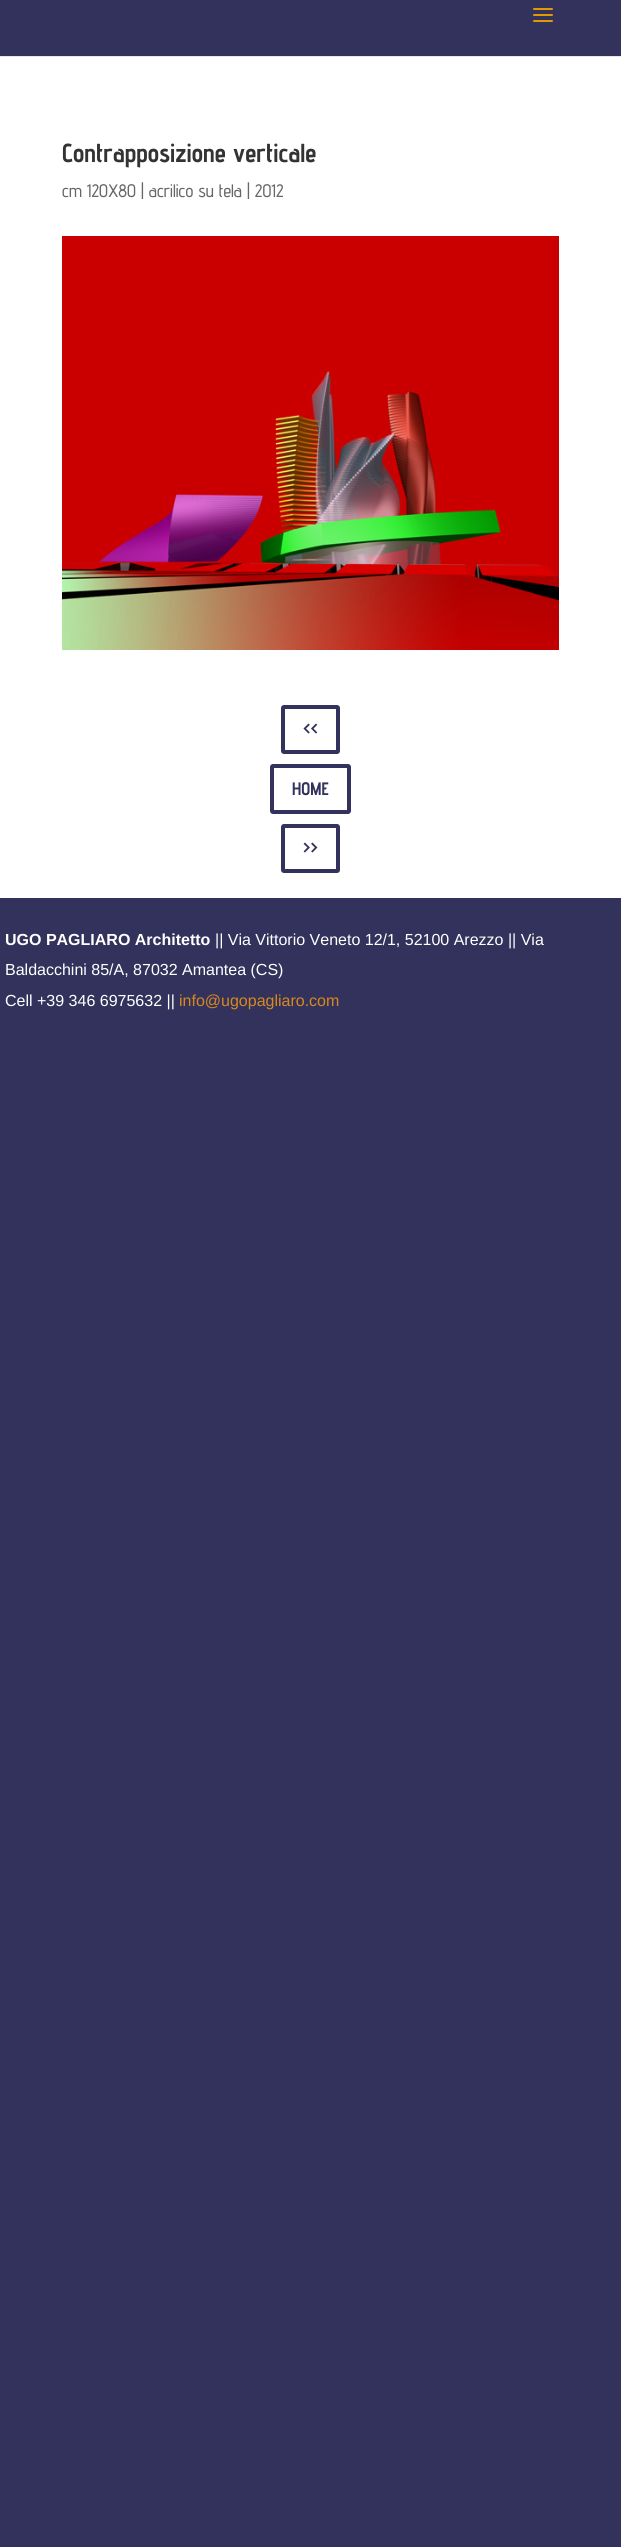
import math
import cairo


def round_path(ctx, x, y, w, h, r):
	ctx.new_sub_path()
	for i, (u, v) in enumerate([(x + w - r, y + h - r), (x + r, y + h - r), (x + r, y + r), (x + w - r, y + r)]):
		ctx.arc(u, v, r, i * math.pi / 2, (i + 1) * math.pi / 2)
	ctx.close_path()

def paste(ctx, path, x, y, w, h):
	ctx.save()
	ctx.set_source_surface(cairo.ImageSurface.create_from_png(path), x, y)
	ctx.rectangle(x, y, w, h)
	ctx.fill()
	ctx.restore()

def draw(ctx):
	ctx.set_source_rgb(0.196, 0.196, 0.361)
	ctx.paint()
	ctx.set_source_rgb(0.902, 0.902, 0.902)
	ctx.rectangle(0, 56, 621, 1)
	ctx.fill()
	paste(ctx, 'media/1.png', 533, 8, 20, 14)
	ctx.set_source_rgb(1, 1, 1)
	ctx.rectangle(0, 57, 621, 841)
	ctx.fill()
	ctx.select_font_face('Advent Pro', cairo.FONT_SLANT_NORMAL, cairo.FONT_WEIGHT_BOLD)
	ctx.set_font_size(26)
	ctx.set_source_rgb(0.2, 0.2, 0.2)
	ctx.move_to(62, 162)
	ctx.show_text('Contrapposizione verticale')
	ctx.select_font_face('Advent Pro Medium')
	ctx.set_font_size(18)
	ctx.set_source_rgb(0.4, 0.4, 0.4)
	ctx.move_to(62, 197)
	ctx.show_text('cm 120X80 | acrilico su tela | 2012')
	paste(ctx, 'media/2.png', 62, 236, 497, 414)
	round_path(ctx, 283, 707, 55, 45, 1)
	ctx.set_source_rgb(0.196, 0.196, 0.361)
	ctx.set_line_width(4)
	ctx.stroke()
	ctx.select_font_face('Advent Pro', cairo.FONT_SLANT_NORMAL, cairo.FONT_WEIGHT_BOLD)
	ctx.move_to(303, 735)
	ctx.show_text('<<')
	round_path(ctx, 272, 766, 77, 46, 1)
	ctx.stroke()
	ctx.move_to(292, 795)
	ctx.show_text('HOME')
	round_path(ctx, 283, 826, 55, 45, 1)
	ctx.stroke()
	ctx.move_to(303, 854)
	ctx.show_text('>>')
	ctx.select_font_face('Arimo', cairo.FONT_SLANT_NORMAL, cairo.FONT_WEIGHT_BOLD)
	ctx.set_font_size(16)
	ctx.set_source_rgb(1, 1, 1)
	ctx.move_to(5, 945)
	ctx.show_text('UGO PAGLIARO Architetto')
	ctx.select_font_face('Arimo')
	for x, y, s in [
		(215, 945, '|| Via Vittorio Veneto 12/1, 52100 Arezzo || Via'),
		(5, 975, 'Baldacchini 85/A, 87032 Amantea (CS)'),
		(5, 1006, 'Cell +39 346 6975632 ||'),
	]:
		ctx.move_to(x, y)
		ctx.show_text(s)
	ctx.set_source_rgb(0.851, 0.533, 0.118)
	ctx.move_to(179, 1006)
	ctx.show_text('info@ugopagliaro.com')


surface = cairo.ImageSurface(cairo.FORMAT_RGB24, 621, 2547)
ctx = cairo.Context(surface)
options = cairo.FontOptions()
options.set_hint_metrics(cairo.HINT_METRICS_OFF)
options.set_hint_style(cairo.HINT_STYLE_NONE)
ctx.set_font_options(options)
ctx.set_miter_limit(4)
draw(ctx)
surface.write_to_png('image.png')
